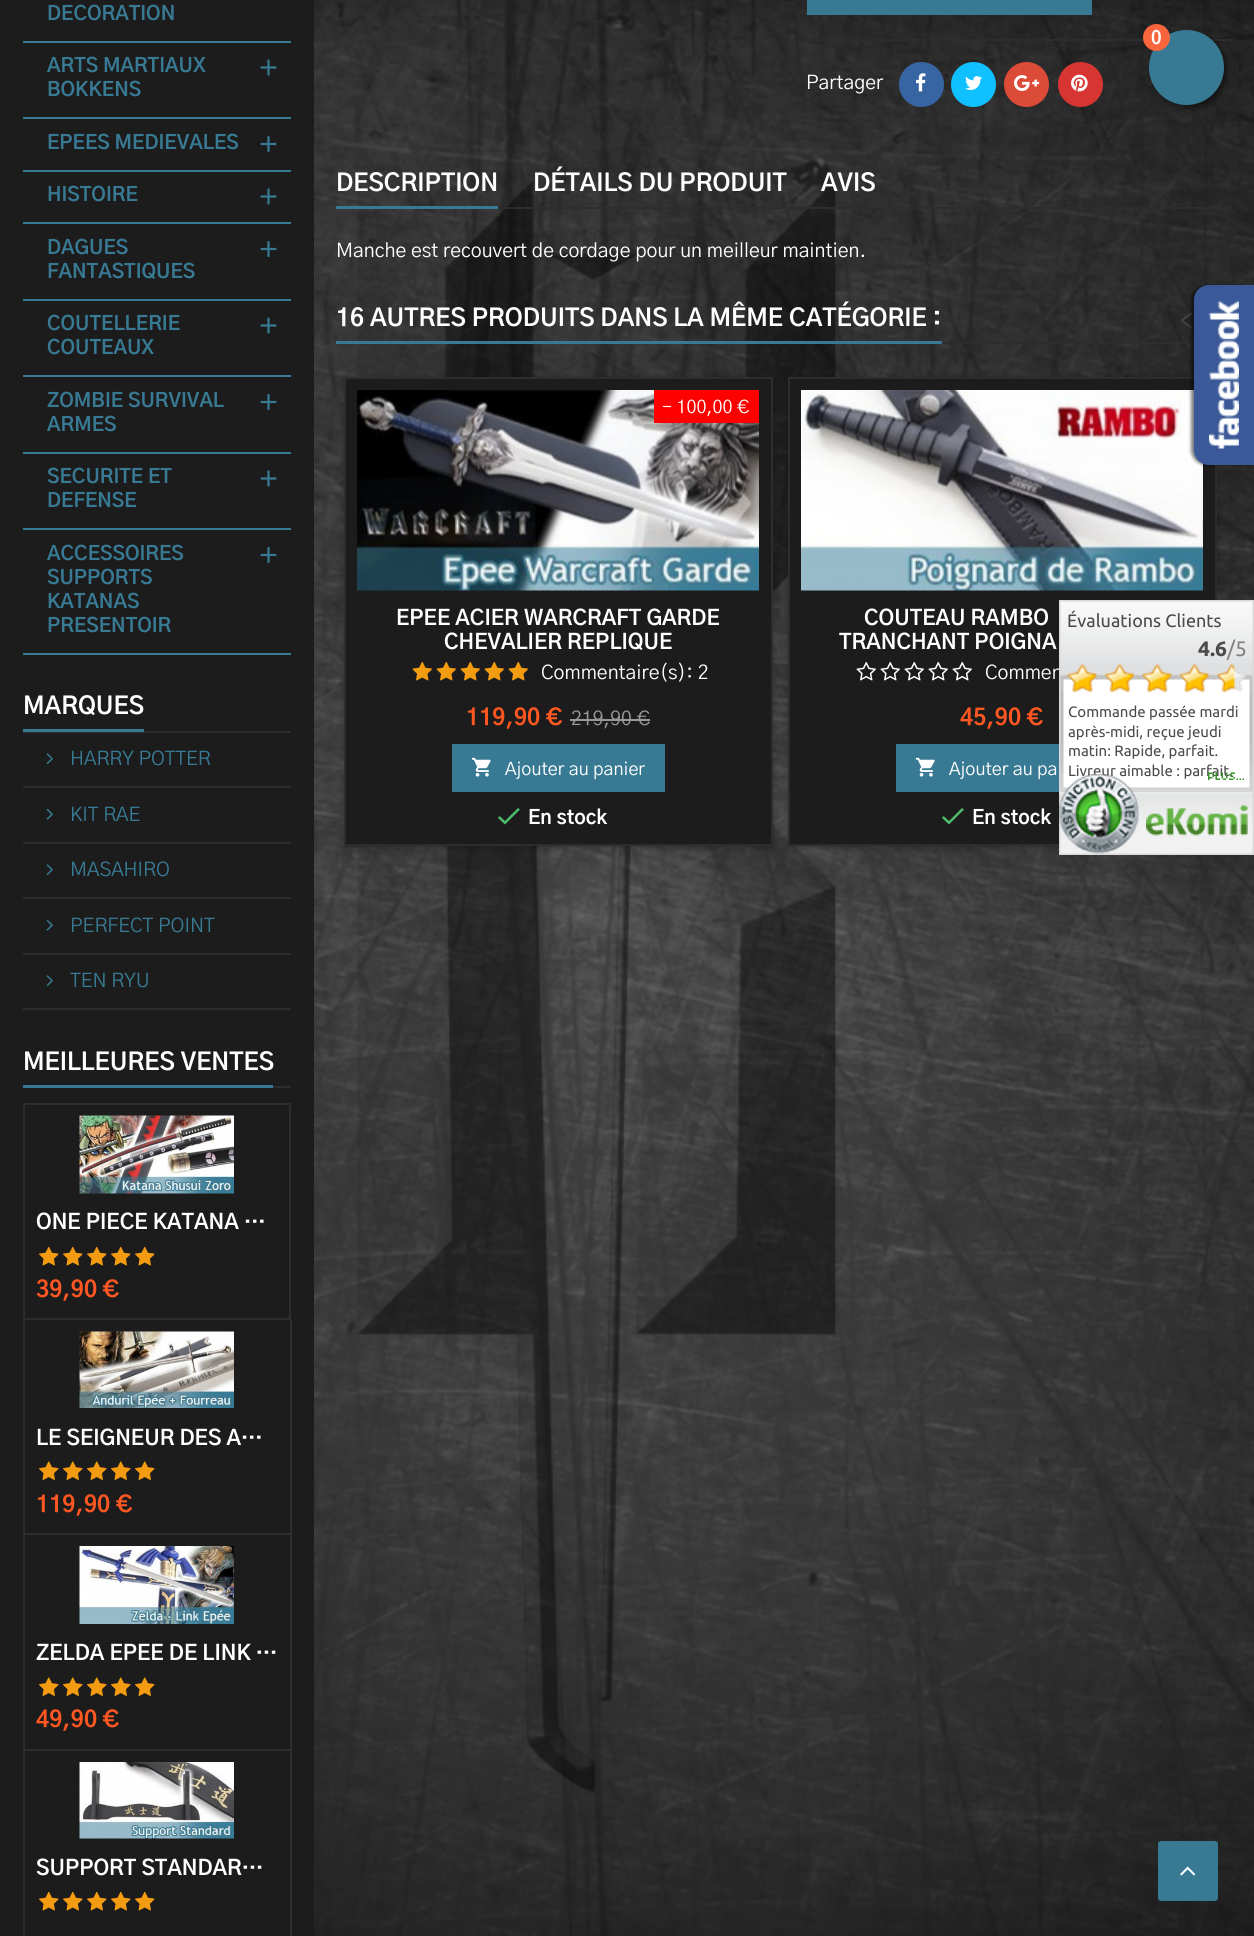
import math
import cairo


def round_path(ctx, x, y, w, h, r):
	ctx.new_sub_path()
	for i, (u, v) in enumerate([(x + w - r, y + h - r), (x + r, y + h - r), (x + r, y + r), (x + w - r, y + r)]):
		ctx.arc(u, v, r, i * math.pi / 2, (i + 1) * math.pi / 2)
	ctx.close_path()

def blur_box(ctx, x, y, w, h, r, blur, alpha):
	ctx.push_group_with_content(cairo.CONTENT_ALPHA)
	ctx.set_operator(cairo.OPERATOR_SOURCE)
	for i in range(15, -16, -2):
		e = blur * i / 6
		if min(w, h) + 2 * e > 0:
			ctx.set_source_rgba(0, 0, 0, alpha * math.erfc((i - 1) / 8.5) / 2)
			round_path(ctx, x - e, y - e, w + 2 * e, h + 2 * e, max(0, min(r + e + blur * .6, min(w, h) / 2 + e)))
			ctx.fill()
	ctx.mask(ctx.pop_group())

def paste(ctx, path, x, y, w, h):
	ctx.save()
	ctx.set_source_surface(cairo.ImageSurface.create_from_png(path), x, y)
	ctx.rectangle(x, y, w, h)
	ctx.fill()
	ctx.restore()

def draw(ctx):
	ctx.set_source_rgb(1, 1, 1)
	ctx.paint()
	paste(ctx, 'media/1.png', 314, 0, 940, 1936)
	ctx.set_source_rgb(0.11, 0.11, 0.11)
	ctx.rectangle(0, 0, 314, 1936)
	ctx.fill()
	ctx.set_source_rgb(0.22, 0.478, 0.58)
	ctx.rectangle(23, 41, 268, 2)
	ctx.fill()
	ctx.select_font_face('Gothic A1', cairo.FONT_SLANT_NORMAL, cairo.FONT_WEIGHT_BOLD)
	ctx.set_font_size(19.5)
	ctx.move_to(47, 20)
	ctx.show_text('DECORATION')
	ctx.rectangle(23, 117, 268, 2)
	ctx.fill()
	ctx.move_to(47, 72)
	ctx.show_text('ARTS MARTIAUX')
	ctx.move_to(47, 96)
	ctx.show_text('BOKKENS')
	paste(ctx, 'media/2.png', 260, 59, 17, 17)
	ctx.rectangle(23, 170, 268, 2)
	ctx.fill()
	ctx.move_to(47, 149)
	ctx.show_text('EPEES MEDIEVALES')
	paste(ctx, 'media/3.png', 260, 136, 17, 16)
	ctx.rectangle(23, 222, 268, 2)
	ctx.fill()
	ctx.move_to(47, 201)
	ctx.show_text('HISTOIRE')
	paste(ctx, 'media/2.png', 260, 188, 17, 17)
	ctx.rectangle(23, 299, 268, 2)
	ctx.fill()
	ctx.move_to(47, 254)
	ctx.show_text('DAGUES')
	ctx.move_to(47, 278)
	ctx.show_text('FANTASTIQUES')
	paste(ctx, 'media/3.png', 260, 241, 17, 16)
	ctx.rectangle(23, 375, 268, 2)
	ctx.fill()
	ctx.move_to(47, 330)
	ctx.show_text('COUTELLERIE')
	ctx.move_to(47, 354)
	ctx.show_text('COUTEAUX')
	paste(ctx, 'media/2.png', 260, 317, 17, 17)
	ctx.rectangle(23, 452, 268, 2)
	ctx.fill()
	ctx.move_to(47, 407)
	ctx.show_text('ZOMBIE SURVIVAL')
	ctx.move_to(47, 431)
	ctx.show_text('ARMES')
	paste(ctx, 'media/3.png', 260, 394, 17, 16)
	ctx.rectangle(23, 528, 268, 2)
	ctx.fill()
	ctx.move_to(47, 483)
	ctx.show_text('SECURITE ET')
	ctx.move_to(47, 507)
	ctx.show_text('DEFENSE')
	paste(ctx, 'media/2.png', 260, 470, 17, 17)
	ctx.rectangle(23, 653, 268, 2)
	ctx.fill()
	for x, y, s in [
		(47, 560, 'ACCESSOIRES'),
		(47, 584, 'SUPPORTS'),
		(47, 608, 'KATANAS'),
		(47, 632, 'PRESENTOIR'),
	]:
		ctx.move_to(x, y)
		ctx.show_text(s)
	paste(ctx, 'media/3.png', 260, 547, 17, 16)
	ctx.set_source_rgb(0.176, 0.176, 0.176)
	ctx.rectangle(23, 731, 268, 2)
	ctx.fill()
	ctx.set_source_rgb(0.22, 0.478, 0.58)
	ctx.rectangle(23, 729, 121, 3)
	ctx.fill()
	ctx.set_font_size(24)
	ctx.set_source_rgb(1, 1, 1)
	ctx.move_to(23, 714)
	ctx.show_text('MARQUES')
	ctx.set_source_rgb(0.176, 0.176, 0.176)
	ctx.rectangle(23, 786, 268, 2)
	ctx.fill()
	paste(ctx, 'media/4.png', 46, 753, 7, 12)
	ctx.select_font_face('Gothic A1')
	ctx.set_font_size(19.5)
	ctx.set_source_rgb(0.22, 0.478, 0.58)
	ctx.move_to(70, 765)
	ctx.show_text('HARRY POTTER')
	ctx.set_source_rgb(0.176, 0.176, 0.176)
	ctx.rectangle(23, 842, 268, 2)
	ctx.fill()
	paste(ctx, 'media/5.png', 46, 808, 7, 12)
	ctx.set_source_rgb(0.22, 0.478, 0.58)
	ctx.move_to(70, 821)
	ctx.show_text('KIT RAE')
	ctx.set_source_rgb(0.176, 0.176, 0.176)
	ctx.rectangle(23, 897, 268, 2)
	ctx.fill()
	paste(ctx, 'media/4.png', 46, 864, 7, 12)
	ctx.set_source_rgb(0.22, 0.478, 0.58)
	ctx.move_to(70, 876)
	ctx.show_text('MASAHIRO')
	ctx.set_source_rgb(0.176, 0.176, 0.176)
	ctx.rectangle(23, 953, 268, 2)
	ctx.fill()
	paste(ctx, 'media/5.png', 46, 919, 7, 12)
	ctx.set_source_rgb(0.22, 0.478, 0.58)
	ctx.move_to(70, 932)
	ctx.show_text('PERFECT POINT')
	ctx.set_source_rgb(0.176, 0.176, 0.176)
	ctx.rectangle(23, 1008, 268, 2)
	ctx.fill()
	paste(ctx, 'media/4.png', 46, 975, 7, 12)
	ctx.set_source_rgb(0.22, 0.478, 0.58)
	ctx.move_to(70, 987)
	ctx.show_text('TEN RYU')
	ctx.set_source_rgb(0.176, 0.176, 0.176)
	ctx.rectangle(273, 1086, 18, 2)
	ctx.fill()
	ctx.set_source_rgb(0.22, 0.478, 0.58)
	ctx.rectangle(23, 1085, 250, 3)
	ctx.fill()
	ctx.select_font_face('Gothic A1', cairo.FONT_SLANT_NORMAL, cairo.FONT_WEIGHT_BOLD)
	ctx.set_font_size(24)
	ctx.set_source_rgb(1, 1, 1)
	ctx.move_to(23, 1070)
	ctx.show_text('MEILLEURES VENTES')
	ctx.rectangle(24, 1104, 266, 215)
	ctx.set_source_rgb(0.176, 0.176, 0.176)
	ctx.stroke()
	paste(ctx, 'media/6.png', 79, 1115, 155, 79)
	ctx.set_font_size(21)
	ctx.set_source_rgb(1, 1, 1)
	ctx.move_to(36, 1229)
	ctx.show_text('ONE PIECE KATANA …')
	paste(ctx, 'media/7.png', 39, 1246, 20, 20)
	paste(ctx, 'media/7.png', 63, 1246, 20, 20)
	paste(ctx, 'media/7.png', 87, 1246, 20, 20)
	paste(ctx, 'media/7.png', 111, 1246, 20, 20)
	paste(ctx, 'media/7.png', 135, 1246, 20, 20)
	ctx.set_font_size(22.5)
	ctx.set_source_rgb(1, 0.341, 0.133)
	ctx.move_to(36, 1297)
	ctx.show_text('39,90 €')
	ctx.set_source_rgb(0.176, 0.176, 0.176)
	ctx.rectangle(290, 1320, 2, 616)
	ctx.rectangle(23, 1533, 268, 2)
	ctx.rectangle(23, 1320, 2, 215)
	ctx.fill()
	paste(ctx, 'media/8.png', 79, 1331, 155, 77)
	ctx.set_font_size(21)
	ctx.set_source_rgb(1, 1, 1)
	ctx.move_to(36, 1445)
	ctx.show_text('LE SEIGNEUR DES A…')
	paste(ctx, 'media/9.png', 39, 1461, 20, 19)
	paste(ctx, 'media/9.png', 63, 1461, 20, 19)
	paste(ctx, 'media/9.png', 87, 1461, 20, 19)
	paste(ctx, 'media/9.png', 111, 1461, 20, 19)
	paste(ctx, 'media/9.png', 135, 1461, 20, 19)
	ctx.set_font_size(22.5)
	ctx.set_source_rgb(1, 0.341, 0.133)
	ctx.move_to(36, 1512)
	ctx.show_text('119,90 €')
	ctx.set_source_rgb(0.176, 0.176, 0.176)
	ctx.rectangle(23, 1749, 268, 2)
	ctx.fill()
	ctx.rectangle(23, 1535, 2, 401)
	ctx.fill()
	paste(ctx, 'media/10.png', 79, 1546, 155, 78)
	ctx.save()
	ctx.rectangle(36, 1643, 242, 24)
	ctx.clip()
	ctx.set_font_size(21)
	ctx.set_source_rgb(1, 1, 1)
	ctx.move_to(36, 1660)
	ctx.show_text('ZELDA EPÉE DE LINK …')
	ctx.restore()
	paste(ctx, 'media/9.png', 39, 1677, 20, 19)
	paste(ctx, 'media/9.png', 63, 1677, 20, 19)
	paste(ctx, 'media/9.png', 87, 1677, 20, 19)
	paste(ctx, 'media/9.png', 111, 1677, 20, 19)
	paste(ctx, 'media/9.png', 135, 1677, 20, 19)
	ctx.set_source_rgb(1, 0.341, 0.133)
	ctx.move_to(36, 1727)
	ctx.show_text('49,90 €')
	paste(ctx, 'media/11.png', 79, 1762, 155, 77)
	ctx.set_font_size(21)
	ctx.set_source_rgb(1, 1, 1)
	ctx.move_to(36, 1875)
	ctx.show_text('SUPPORT STANDAR…')
	paste(ctx, 'media/7.png', 39, 1891, 20, 20)
	paste(ctx, 'media/7.png', 63, 1891, 20, 20)
	paste(ctx, 'media/7.png', 87, 1891, 20, 20)
	paste(ctx, 'media/7.png', 111, 1891, 20, 20)
	paste(ctx, 'media/7.png', 135, 1891, 20, 20)
	ctx.set_source_rgb(0.22, 0.478, 0.58)
	ctx.rectangle(807, 0, 285, 15)
	ctx.fill()
	ctx.set_source_rgb(0.176, 0.176, 0.176)
	ctx.rectangle(807, 39, 425, 2)
	ctx.fill()
	ctx.select_font_face('Gothic A1')
	ctx.set_font_size(19.5)
	ctx.set_source_rgb(1, 1, 1)
	ctx.move_to(806, 89)
	ctx.show_text('Partager')
	ctx.set_source_rgb(0.216, 0.396, 0.639)
	ctx.new_path()
	ctx.arc(921.5, 84.5, 22.5, 0, 2 * math.pi)
	ctx.fill()
	paste(ctx, 'media/12.png', 916, 73, 10, 19)
	ctx.set_source_rgb(0.067, 0.757, 1)
	ctx.arc(973.5, 84.5, 22.5, 0, 2 * math.pi)
	ctx.fill()
	paste(ctx, 'media/13.png', 965, 76, 17, 14)
	ctx.set_source_rgb(0.863, 0.29, 0.22)
	ctx.arc(1026.5, 84.5, 22.5, 0, 2 * math.pi)
	ctx.fill()
	paste(ctx, 'media/14.png', 1014, 75, 26, 16)
	ctx.set_source_rgb(0.843, 0.208, 0.196)
	ctx.arc(1080.5, 84.5, 22.5, 0, 2 * math.pi)
	ctx.fill()
	paste(ctx, 'media/15.png', 1071, 74, 17, 18)
	ctx.set_source_rgb(0.176, 0.176, 0.176)
	ctx.rectangle(498, 207, 734, 2)
	ctx.fill()
	ctx.set_source_rgb(0.22, 0.478, 0.58)
	ctx.rectangle(336, 206, 162, 3)
	ctx.fill()
	ctx.select_font_face('Gothic A1', cairo.FONT_SLANT_NORMAL, cairo.FONT_WEIGHT_BOLD)
	ctx.set_font_size(24)
	ctx.set_source_rgb(1, 1, 1)
	for x, y, s in [
		(336, 191, 'DESCRIPTION'),
		(533, 191, 'DÉTAILS DU PRODUIT'),
		(821, 191, 'AVIS'),
	]:
		ctx.move_to(x, y)
		ctx.show_text(s)
	ctx.select_font_face('Gothic A1')
	ctx.set_font_size(19.5)
	ctx.move_to(336, 257)
	ctx.show_text('Manche est recouvert de cordage pour un meilleur maintien.')
	ctx.set_source_rgb(0.176, 0.176, 0.176)
	ctx.rectangle(942, 342, 252, 2)
	ctx.fill()
	ctx.set_source_rgb(0.22, 0.478, 0.58)
	ctx.rectangle(336, 341, 606, 3)
	ctx.fill()
	ctx.select_font_face('Gothic A1', cairo.FONT_SLANT_NORMAL, cairo.FONT_WEIGHT_BOLD)
	ctx.set_font_size(24)
	ctx.set_source_rgb(1, 1, 1)
	ctx.move_to(336, 326)
	ctx.show_text('16 AUTRES PRODUITS DANS LA MÊME CATÉGORIE :')
	ctx.select_font_face('Gothic A1')
	ctx.set_source_rgb(0.267, 0.267, 0.267)
	ctx.move_to(1180, 329)
	ctx.show_text('<')
	ctx.set_source_rgb(0, 0, 0)
	blur_box(ctx, 344, 378, 429, 470, 0, 3, 0.24)
	ctx.set_source_rgb(0.11, 0.11, 0.11)
	ctx.rectangle(345, 378, 427, 467)
	ctx.fill_preserve()
	ctx.set_source_rgb(0.176, 0.176, 0.176)
	ctx.stroke()
	paste(ctx, 'media/16.png', 357, 390, 402, 201)
	ctx.set_source_rgb(1, 0, 0)
	ctx.rectangle(654, 390, 105, 33)
	ctx.fill()
	ctx.set_font_size(18)
	ctx.set_source_rgb(1, 1, 1)
	ctx.move_to(662, 413)
	ctx.show_text('- 100,00 €')
	ctx.select_font_face('Gothic A1', cairo.FONT_SLANT_NORMAL, cairo.FONT_WEIGHT_BOLD)
	ctx.set_font_size(21)
	ctx.move_to(396, 625)
	ctx.show_text('EPEE ACIER WARCRAFT GARDE')
	ctx.move_to(444, 649)
	ctx.show_text('CHEVALIER REPLIQUE')
	paste(ctx, 'media/17.png', 412, 661, 20, 20)
	paste(ctx, 'media/17.png', 436, 661, 20, 20)
	paste(ctx, 'media/17.png', 460, 661, 20, 20)
	paste(ctx, 'media/17.png', 484, 661, 20, 20)
	paste(ctx, 'media/17.png', 508, 661, 20, 20)
	ctx.select_font_face('Gothic A1')
	ctx.set_font_size(19.5)
	ctx.move_to(541, 679)
	ctx.show_text('Commentaire(s): 2')
	ctx.select_font_face('Gothic A1', cairo.FONT_SLANT_NORMAL, cairo.FONT_WEIGHT_BOLD)
	ctx.set_font_size(22.5)
	ctx.set_source_rgb(1, 0.341, 0.133)
	ctx.move_to(466, 725)
	ctx.show_text('119,90 €')
	ctx.select_font_face('Gothic A1')
	ctx.set_font_size(19.5)
	ctx.set_source_rgb(0.6, 0.6, 0.6)
	ctx.move_to(571, 725)
	ctx.show_text('219,90 €')
	ctx.rectangle(570, 719, 80, 2)
	ctx.fill()
	ctx.set_source_rgb(0.22, 0.478, 0.58)
	ctx.rectangle(452, 744, 213, 48)
	ctx.fill()
	paste(ctx, 'media/18.png', 471, 757, 20, 20)
	ctx.set_font_size(18)
	ctx.set_source_rgb(1, 1, 1)
	ctx.move_to(505, 775)
	ctx.show_text('Ajouter au panier')
	ctx.set_source_rgb(0.298, 0.733, 0.424)
	ctx.new_path()
	ctx.move_to(505, 821)
	ctx.line_to(518, 808)
	ctx.line_to(520, 809.5)
	ctx.line_to(505, 824.5)
	ctx.line_to(498, 818)
	ctx.line_to(499.5, 816)
	ctx.close_path()
	ctx.fill()
	ctx.select_font_face('Gothic A1', cairo.FONT_SLANT_NORMAL, cairo.FONT_WEIGHT_BOLD)
	ctx.set_font_size(19.5)
	ctx.set_source_rgb(1, 1, 1)
	ctx.move_to(528, 824)
	ctx.show_text('En stock')
	ctx.set_source_rgb(0, 0, 0)
	blur_box(ctx, 788, 378, 429, 470, 0, 3, 0.24)
	ctx.set_source_rgb(0.11, 0.11, 0.11)
	ctx.rectangle(789, 378, 427, 467)
	ctx.fill_preserve()
	ctx.set_source_rgb(0.176, 0.176, 0.176)
	ctx.stroke()
	paste(ctx, 'media/19.png', 801, 390, 402, 201)
	ctx.set_font_size(21)
	ctx.set_source_rgb(1, 1, 1)
	ctx.move_to(864, 625)
	ctx.show_text('COUTEAU RAMBO')
	ctx.move_to(839, 649)
	ctx.show_text('TRANCHANT POIGNA')
	paste(ctx, 'media/20.png', 856, 661, 20, 20)
	paste(ctx, 'media/20.png', 880, 661, 20, 20)
	paste(ctx, 'media/20.png', 904, 661, 20, 20)
	paste(ctx, 'media/20.png', 928, 661, 20, 20)
	paste(ctx, 'media/20.png', 952, 661, 20, 20)
	ctx.select_font_face('Gothic A1')
	ctx.set_font_size(19.5)
	ctx.move_to(985, 679)
	ctx.show_text('Commen')
	ctx.select_font_face('Gothic A1', cairo.FONT_SLANT_NORMAL, cairo.FONT_WEIGHT_BOLD)
	ctx.set_font_size(22.5)
	ctx.set_source_rgb(1, 0.341, 0.133)
	ctx.move_to(960, 725)
	ctx.show_text('45,90 €')
	ctx.set_source_rgb(0.22, 0.478, 0.58)
	ctx.rectangle(896, 744, 163, 48)
	ctx.fill()
	paste(ctx, 'media/18.png', 915, 757, 20, 20)
	ctx.select_font_face('Gothic A1')
	ctx.set_font_size(18)
	ctx.set_source_rgb(1, 1, 1)
	ctx.move_to(949, 775)
	ctx.show_text('Ajouter au pa')
	ctx.set_source_rgb(0.298, 0.733, 0.424)
	ctx.new_path()
	ctx.move_to(949, 821)
	ctx.line_to(962, 808)
	ctx.line_to(964, 809.5)
	ctx.line_to(949, 824.5)
	ctx.line_to(942, 818)
	ctx.line_to(943.5, 816)
	ctx.close_path()
	ctx.fill()
	ctx.select_font_face('Gothic A1', cairo.FONT_SLANT_NORMAL, cairo.FONT_WEIGHT_BOLD)
	ctx.set_font_size(19.5)
	ctx.set_source_rgb(1, 1, 1)
	ctx.move_to(972, 824)
	ctx.show_text('En stock')
	ctx.set_source_rgb(0, 0, 0)
	blur_box(ctx, 1191, 285, 60, 180, 15, 1.5, 0.5)
	ctx.set_source_rgb(0.231, 0.349, 0.596)
	ctx.new_path()
	ctx.move_to(1209, 285)
	ctx.line_to(1254, 285)
	ctx.line_to(1254, 465)
	ctx.line_to(1209, 465)
	ctx.curve_to(1200.5, 465, 1194, 458.5, 1194, 450)
	ctx.line_to(1194, 300)
	ctx.curve_to(1194, 291.5, 1200.5, 285, 1209, 285)
	ctx.close_path()
	ctx.fill()
	paste(ctx, 'media/21.png', 1209, 301, 30, 148)
	ctx.set_source_rgb(0, 0, 0)
	blur_box(ctx, 1152, 33, 75, 75, 37.5, 3, 0.5)
	ctx.set_source_rgb(0.22, 0.478, 0.58)
	ctx.arc(1186.5, 67.5, 37.5, 0, 2 * math.pi)
	ctx.fill()
	ctx.set_source_rgb(0.973, 0.396, 0.239)
	ctx.arc(1156.5, 37.5, 13.5, 0, 2 * math.pi)
	ctx.fill()
	ctx.set_font_size(18)
	ctx.set_source_rgb(1, 1, 1)
	ctx.move_to(1151, 44)
	ctx.show_text('0')
	ctx.set_source_rgb(0.22, 0.478, 0.58)
	round_path(ctx, 1158, 1841, 60, 60, 3)
	ctx.fill()
	paste(ctx, 'media/22.png', 1180, 1866, 16, 10)
	paste(ctx, 'media/23.png', 1059, 600, 195, 255)
	ctx.select_font_face('Ubuntu')
	ctx.set_source_rgb(0.298, 0.294, 0.294)
	ctx.move_to(1067, 627)
	ctx.show_text('Évaluations Clients')
	ctx.select_font_face('Ubuntu', cairo.FONT_SLANT_NORMAL, cairo.FONT_WEIGHT_BOLD)
	ctx.set_font_size(21)
	ctx.move_to(1198, 656)
	ctx.show_text('4.6')
	ctx.select_font_face('Ubuntu')
	ctx.set_source_rgb(0.514, 0.502, 0.502)
	ctx.move_to(1227, 656)
	ctx.show_text('/5')
	paste(ctx, 'media/24.png', 1068, 665, 179, 27)
	paste(ctx, 'media/25.png', 1067, 664, 168, 29)
	ctx.set_font_size(15)
	ctx.set_source_rgb(0.298, 0.294, 0.294)
	for x, y, s in [
		(1068, 717, 'Commande passée mardi'),
		(1068, 737, 'après-midi, reçue jeudi'),
		(1068, 756, 'matin: Rapide, parfait.'),
		(1068, 776, 'Livreur aimable : parfait.'),
	]:
		ctx.move_to(x, y)
		ctx.show_text(s)
	ctx.select_font_face('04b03')
	ctx.set_font_size(12)
	ctx.set_source_rgb(0.212, 0.576, 0.157)
	ctx.move_to(1208, 780)
	ctx.show_text('PLUS...')
	paste(ctx, 'media/26.png', 1059, 774, 80, 80)
	paste(ctx, 'media/27.png', 1146, 805, 102, 31)


surface = cairo.ImageSurface(cairo.FORMAT_RGB24, 1254, 1936)
ctx = cairo.Context(surface)
options = cairo.FontOptions()
options.set_hint_metrics(cairo.HINT_METRICS_OFF)
options.set_hint_style(cairo.HINT_STYLE_NONE)
ctx.set_font_options(options)
ctx.set_miter_limit(4)
draw(ctx)
surface.write_to_png('image.png')
